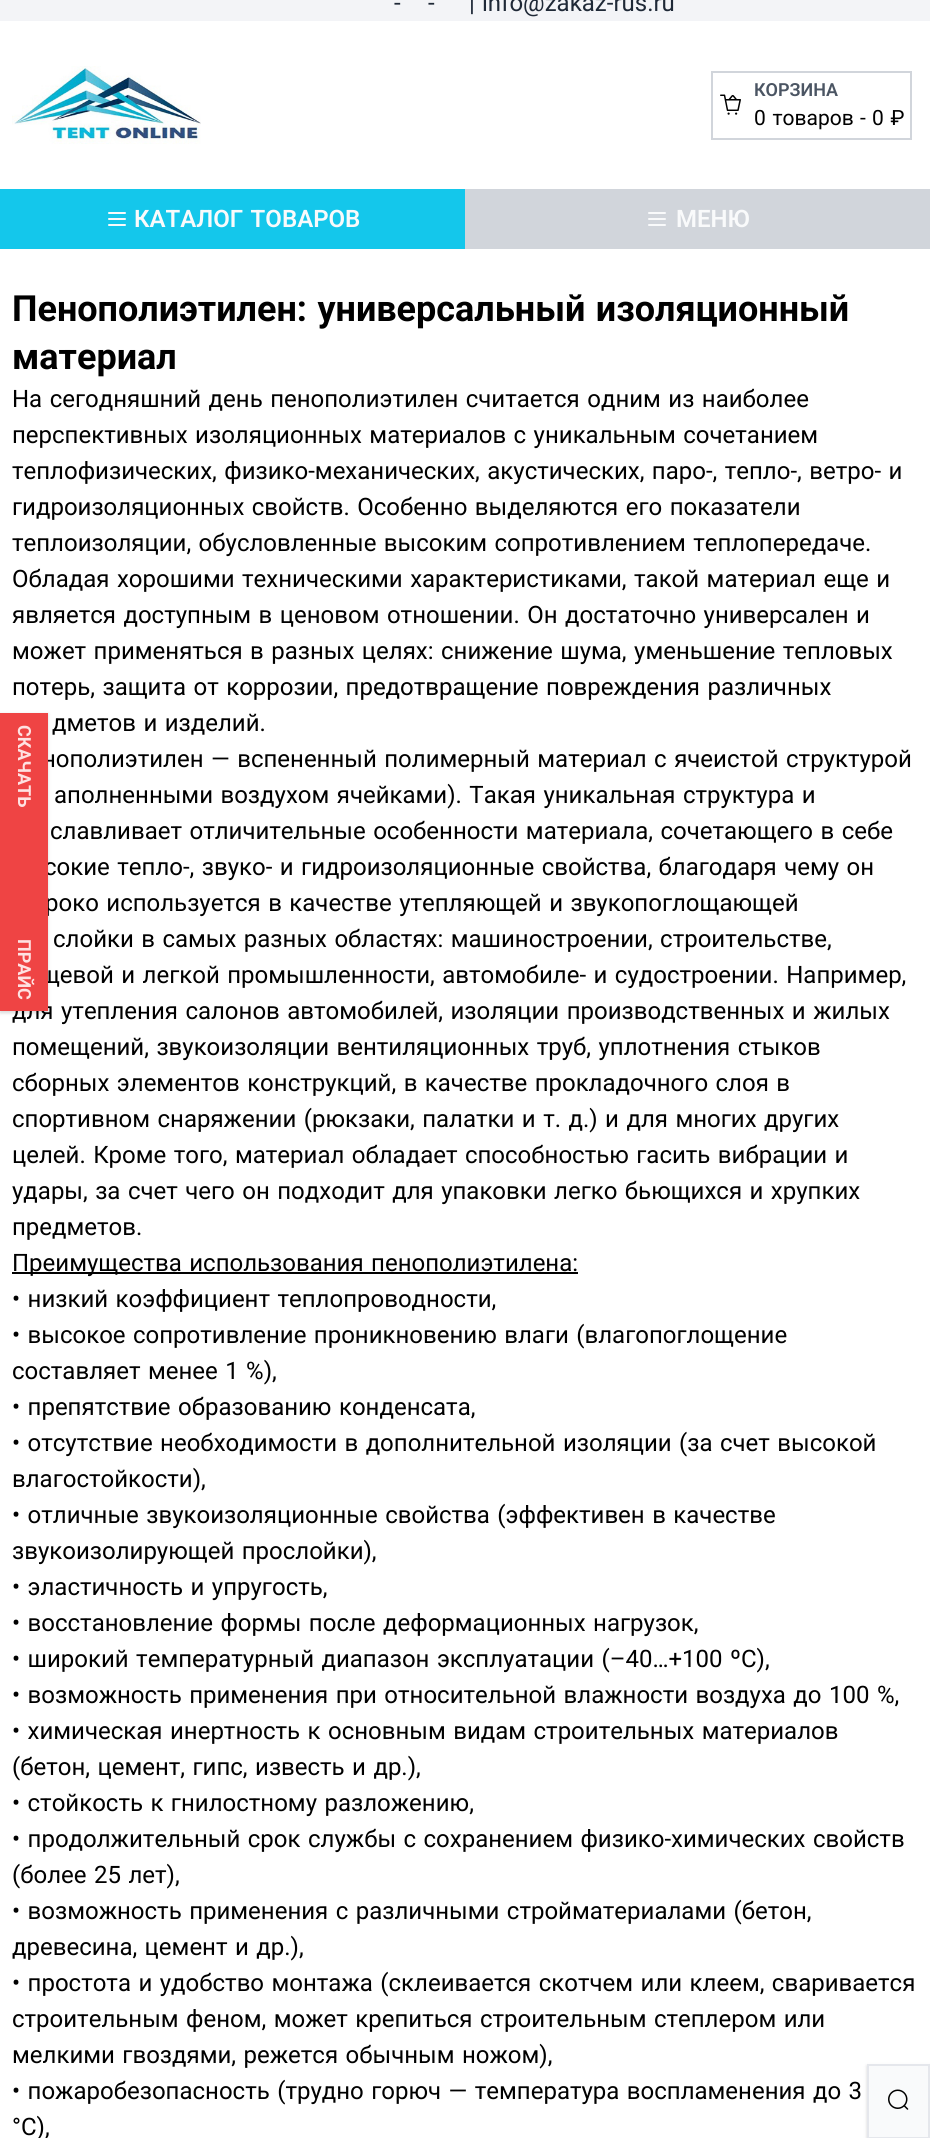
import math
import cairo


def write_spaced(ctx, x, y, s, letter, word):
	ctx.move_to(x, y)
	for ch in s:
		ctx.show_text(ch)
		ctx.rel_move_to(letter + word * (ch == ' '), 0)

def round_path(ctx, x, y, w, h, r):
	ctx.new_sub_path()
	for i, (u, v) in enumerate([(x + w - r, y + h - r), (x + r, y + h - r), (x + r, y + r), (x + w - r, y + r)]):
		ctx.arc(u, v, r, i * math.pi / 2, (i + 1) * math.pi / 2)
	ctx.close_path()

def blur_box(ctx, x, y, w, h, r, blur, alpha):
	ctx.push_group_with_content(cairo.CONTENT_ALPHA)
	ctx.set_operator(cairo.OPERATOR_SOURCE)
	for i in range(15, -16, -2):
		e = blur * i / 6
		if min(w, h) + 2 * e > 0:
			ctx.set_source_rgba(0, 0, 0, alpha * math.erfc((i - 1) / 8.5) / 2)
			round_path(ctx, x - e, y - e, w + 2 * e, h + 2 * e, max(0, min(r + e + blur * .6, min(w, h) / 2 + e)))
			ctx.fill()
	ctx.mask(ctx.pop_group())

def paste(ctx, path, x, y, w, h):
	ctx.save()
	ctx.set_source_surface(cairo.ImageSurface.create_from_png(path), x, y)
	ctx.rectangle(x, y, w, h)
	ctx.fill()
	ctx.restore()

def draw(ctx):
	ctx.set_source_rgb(0.953, 0.957, 0.965)
	ctx.paint()
	ctx.select_font_face('Roboto')
	ctx.set_font_size(24)
	ctx.set_source_rgb(0.122, 0.161, 0.216)
	write_spaced(ctx, 394, 11, '-', 0, 1.5)
	write_spaced(ctx, 428, 11, '-', 0, 1.5)
	ctx.move_to(469, 11)
	ctx.show_text('|')
	ctx.move_to(482, 11)
	ctx.show_text('info@zakaz-rus.ru')
	ctx.set_source_rgb(1, 1, 1)
	ctx.rectangle(0, 21, 930, 168)
	ctx.fill()
	paste(ctx, 'media/1.png', 12, 66, 189, 78)
	ctx.rectangle(712, 72, 199, 67)
	ctx.set_source_rgb(0.82, 0.835, 0.859)
	ctx.stroke()
	paste(ctx, 'media/2.png', 720, 94, 21, 21)
	ctx.select_font_face('Roboto SemiBold')
	ctx.set_font_size(18)
	ctx.set_source_rgb(0.294, 0.333, 0.388)
	ctx.move_to(754, 96)
	ctx.show_text('КОРЗИНА')
	ctx.select_font_face('Roboto')
	ctx.set_font_size(21)
	ctx.set_source_rgb(0, 0, 0)
	write_spaced(ctx, 754, 125, '0 товаров', 0, 1.5)
	ctx.move_to(860, 125)
	ctx.show_text('-')
	write_spaced(ctx, 872, 125, '0 ₽', 0, 1.5)
	ctx.set_source_rgb(1, 1, 1)
	ctx.rectangle(0, 249, 930, 1889)
	ctx.fill()
	ctx.set_source_rgb(0, 0, 0)
	blur_box(ctx, 867, 2066, 63, 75, 0, 1.5, 0.06)
	blur_box(ctx, 867, 2066, 63, 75, 0, 2, 0.1)
	ctx.set_source_rgb(0.976, 0.98, 0.984)
	ctx.rectangle(868, 2065, 61, 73)
	ctx.fill_preserve()
	ctx.set_source_rgb(0.898, 0.906, 0.922)
	ctx.stroke()
	paste(ctx, 'media/3.png', 888, 2089, 21, 21)
	ctx.set_source_rgb(0.082, 0.78, 0.918)
	ctx.rectangle(0, 189, 465, 60)
	ctx.fill()
	ctx.new_path()
	ctx.move_to(109, 213)
	ctx.line_to(125, 213)
	ctx.move_to(109, 219)
	ctx.line_to(125, 219)
	ctx.move_to(109, 225)
	ctx.line_to(125, 225)
	ctx.set_source_rgb(0.976, 0.98, 0.984)
	ctx.set_line_cap(cairo.LINE_CAP_ROUND)
	ctx.set_line_join(cairo.LINE_JOIN_ROUND)
	ctx.stroke()
	ctx.select_font_face('Roboto SemiBold')
	ctx.set_font_size(24)
	write_spaced(ctx, 134, 227, 'КАТАЛОГ ТОВАРОВ', 0, 1.5)
	ctx.set_source_rgb(0.82, 0.835, 0.859)
	ctx.rectangle(465, 189, 465, 60)
	ctx.fill()
	ctx.new_path()
	ctx.move_to(649, 213)
	ctx.line_to(665, 213)
	ctx.move_to(649, 219)
	ctx.line_to(665, 219)
	ctx.move_to(649, 225)
	ctx.line_to(665, 225)
	ctx.set_source_rgb(0.976, 0.98, 0.984)
	ctx.stroke()
	ctx.move_to(676, 227)
	ctx.show_text('МЕНЮ')
	ctx.select_font_face('Roboto', cairo.FONT_SLANT_NORMAL, cairo.FONT_WEIGHT_BOLD)
	ctx.set_font_size(36)
	ctx.set_source_rgb(0, 0, 0)
	write_spaced(ctx, 12, 321, 'Пенополиэтилен: универсальный изоляционный', 0, 1.5)
	ctx.move_to(12, 369)
	ctx.show_text('материал')
	ctx.select_font_face('Roboto')
	ctx.set_font_size(24)
	for x, y, s in [
		(12, 407, 'На сегодняшний день пенополиэтилен считается одним из наиболее'),
		(12, 443, 'перспективных изоляционных материалов с уникальным сочетанием'),
		(12, 479, 'теплофизических, физико-механических, акустических, паро-, тепло-, ветро- и'),
		(12, 515, 'гидроизоляционных свойств. Особенно выделяются его показатели'),
		(12, 551, 'теплоизоляции, обусловленные высоким сопротивлением теплопередаче.'),
		(12, 587, 'Обладая хорошими техническими характеристиками, такой материал еще и'),
		(12, 623, 'является доступным в ценовом отношении. Он достаточно универсален и'),
		(12, 659, 'может применяться в разных целях: снижение шума, уменьшение тепловых'),
		(12, 695, 'потерь, защита от коррозии, предотвращение повреждения различных'),
		(52, 731, 'дметов и изделий.'),
		(42, 767, 'нополиэтилен — вспененный полимерный материал с ячеистой структурой'),
		(54, 803, 'аполненными воздухом ячейками). Такая уникальная структура и'),
		(50, 839, 'славливает отличительные особенности материала, сочетающего в себе'),
		(44, 875, 'сокие тепло-, звуко- и гидроизоляционные свойства, благодаря чему он'),
		(45, 911, 'роко используется в качестве утепляющей и звукопоглощающей'),
		(53, 947, 'слойки в самых разных областях: машиностроении, строительстве,'),
		(40, 983, 'щевой и легкой промышленности, автомобиле- и судостроении. Например,'),
		(12, 1019, 'для утепления салонов автомобилей, изоляции производственных и жилых'),
		(12, 1055, 'помещений, звукоизоляции вентиляционных труб, уплотнения стыков'),
		(12, 1091, 'сборных элементов конструкций, в качестве прокладочного слоя в'),
		(12, 1127, 'спортивном снаряжении (рюкзаки, палатки и т. д.) и для многих других'),
		(12, 1163, 'целей. Кроме того, материал обладает способностью гасить вибрации и'),
		(12, 1199, 'удары, за счет чего он подходит для упаковки легко бьющихся и хрупких'),
	]:
		write_spaced(ctx, x, y, s, 0, 1.5)
	ctx.move_to(12, 1235)
	ctx.show_text('предметов.')
	ctx.rectangle(12, 1272, 566, 2)
	ctx.fill()
	for x, y, s in [
		(12, 1271, 'Преимущества использования пенополиэтилена:'),
		(12, 1307, '• низкий коэффициент теплопроводности,'),
		(12, 1343, '• высокое сопротивление проникновению влаги (влагопоглощение'),
		(12, 1379, 'составляет менее 1 %),'),
		(12, 1415, '• препятствие образованию конденсата,'),
		(12, 1451, '• отсутствие необходимости в дополнительной изоляции (за счет высокой'),
	]:
		write_spaced(ctx, x, y, s, 0, 1.5)
	ctx.move_to(12, 1487)
	ctx.show_text('влагостойкости),')
	for x, y, s in [
		(12, 1523, '• отличные звукоизоляционные свойства (эффективен в качестве'),
		(12, 1559, 'звукоизолирующей прослойки),'),
		(12, 1595, '• эластичность и упругость,'),
		(12, 1631, '• восстановление формы после деформационных нагрузок,'),
		(12, 1667, '• широкий температурный диапазон эксплуатации (–40…+100 ºС),'),
		(12, 1703, '• возможность применения при относительной влажности воздуха до 100 %,'),
		(12, 1739, '• химическая инертность к основным видам строительных материалов'),
		(12, 1775, '(бетон, цемент, гипс, известь и др.),'),
		(12, 1811, '• стойкость к гнилостному разложению,'),
		(12, 1847, '• продолжительный срок службы с сохранением физико-химических свойств'),
		(12, 1883, '(более 25 лет),'),
		(12, 1919, '• возможность применения с различными стройматериалами (бетон,'),
		(12, 1955, 'древесина, цемент и др.),'),
		(12, 1991, '• простота и удобство монтажа (склеивается скотчем или клеем, сваривается'),
		(12, 2027, 'строительным феном, может крепиться строительным степлером или'),
		(12, 2063, 'мелкими гвоздями, режется обычным ножом),'),
		(12, 2099, '• пожаробезопасность (трудно горюч — температура воспламенения до 3'),
	]:
		write_spaced(ctx, x, y, s, 0, 1.5)
	ctx.move_to(12, 2135)
	ctx.show_text('°С),')
	ctx.set_source_rgb(0, 0, 0)
	blur_box(ctx, 0, 714, 48, 299, 0, 1.5, 0.06)
	blur_box(ctx, 0, 714, 48, 299, 0, 2, 0.1)
	ctx.set_source_rgb(0.937, 0.267, 0.267)
	ctx.rectangle(0, 713, 48, 298)
	ctx.fill()
	ctx.select_font_face('Roboto', cairo.FONT_SLANT_NORMAL, cairo.FONT_WEIGHT_BOLD)
	ctx.set_font_size(18)
	ctx.set_source_rgb(0.996, 0.886, 0.886)
	ctx.save()
	ctx.translate(18, 725)
	ctx.rotate(90 * math.pi / 180)
	write_spaced(ctx, 0, 0, 'СКАЧАТЬ ПРАЙС', 0, 127)
	ctx.restore()


surface = cairo.ImageSurface(cairo.FORMAT_RGB24, 930, 2138)
ctx = cairo.Context(surface)
options = cairo.FontOptions()
options.set_hint_metrics(cairo.HINT_METRICS_OFF)
options.set_hint_style(cairo.HINT_STYLE_NONE)
ctx.set_font_options(options)
ctx.set_miter_limit(4)
draw(ctx)
surface.write_to_png('image.png')
